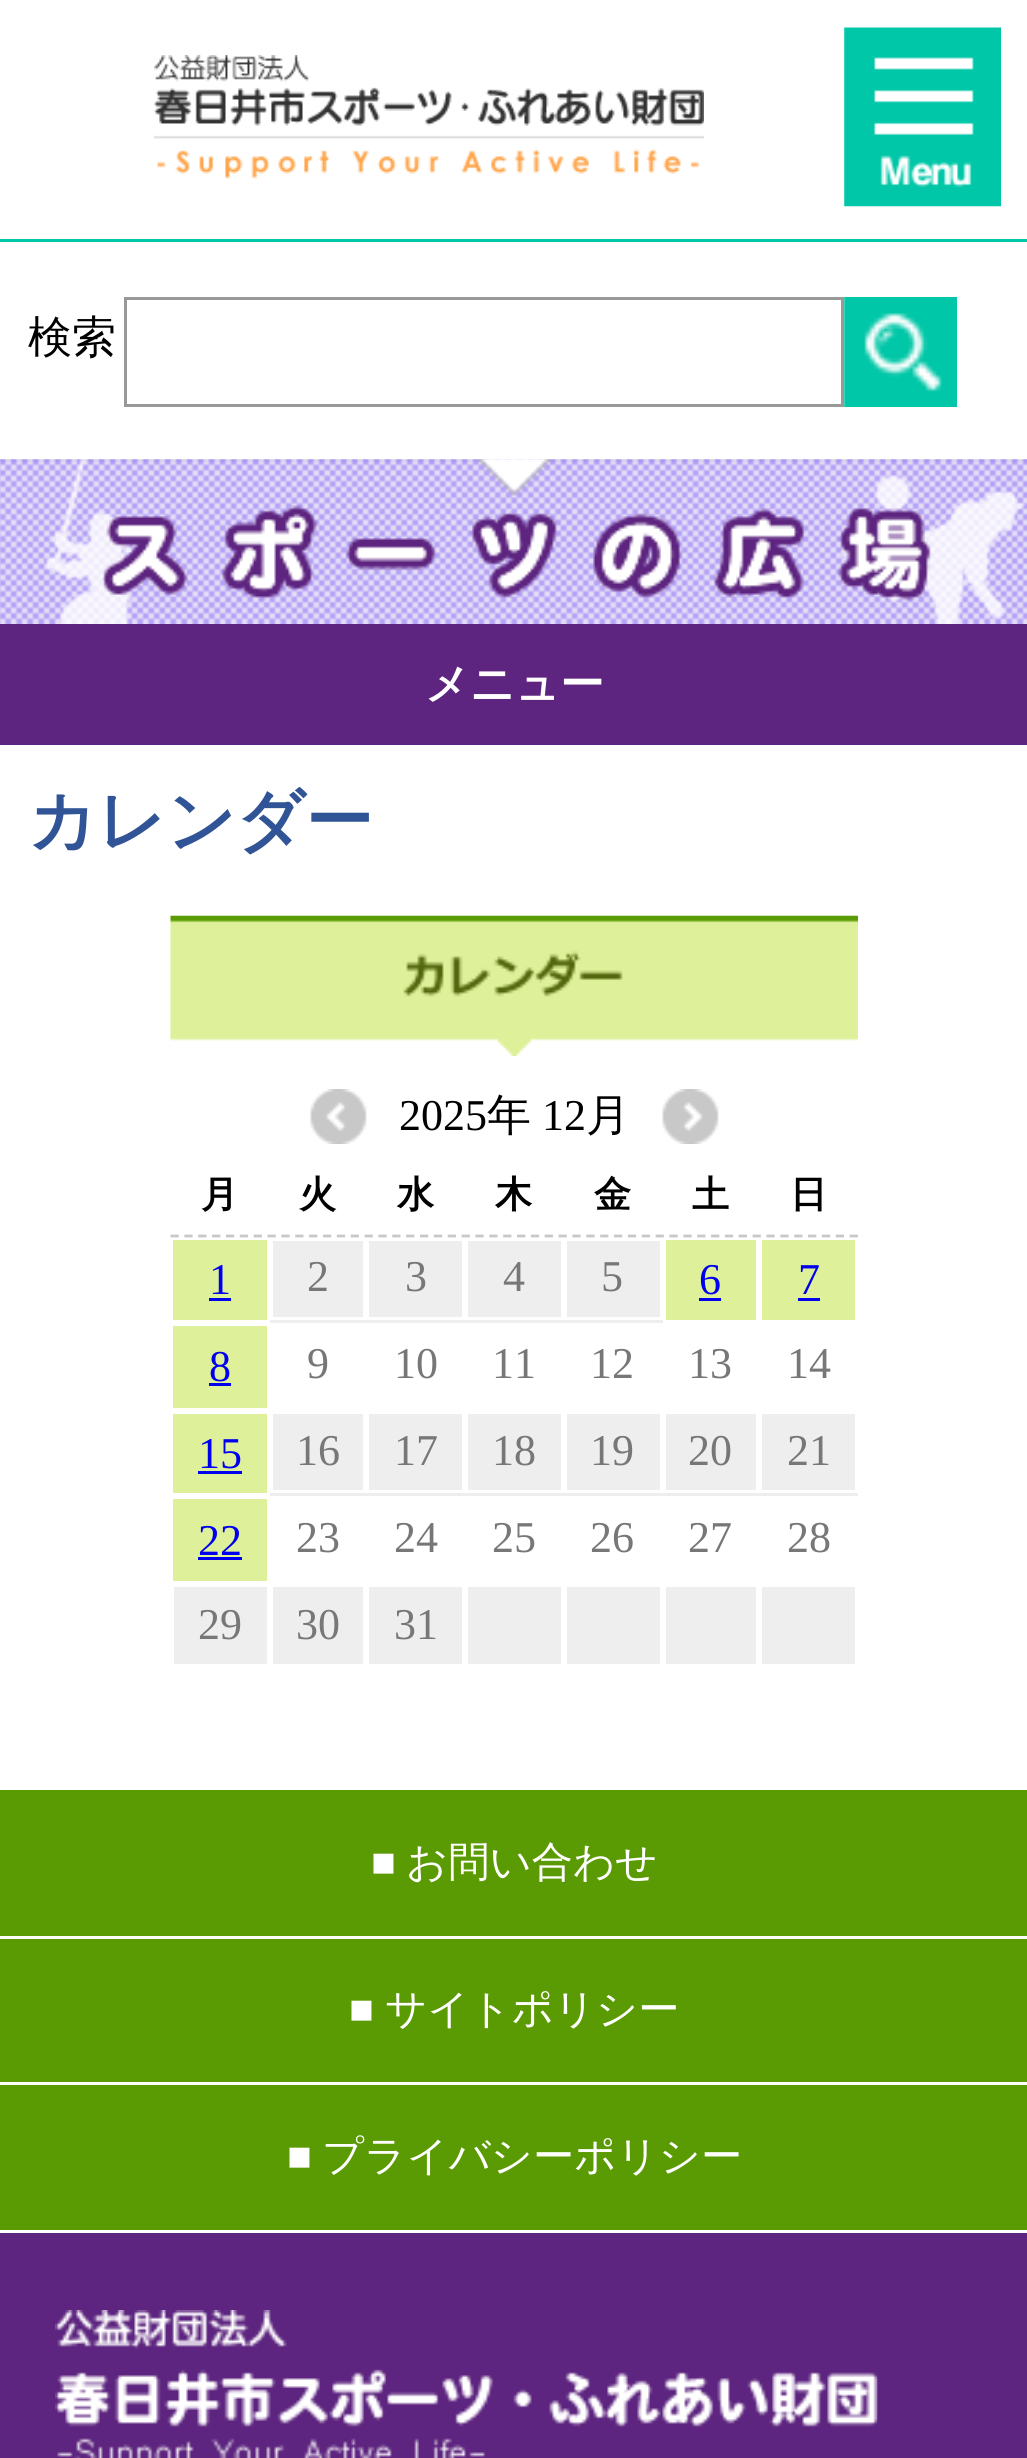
import math
import cairo


def paste(ctx, path, x, y, w, h):
	ctx.save()
	ctx.set_source_surface(cairo.ImageSurface.create_from_png(path), x, y)
	ctx.rectangle(x, y, w, h)
	ctx.fill()
	ctx.restore()

def draw(ctx):
	ctx.set_source_rgb(1, 1, 1)
	ctx.paint()
	paste(ctx, 'media/1.png', 154, 55, 550, 124)
	paste(ctx, 'media/2.png', 844, 27, 157, 180)
	ctx.set_source_rgb(0, 0.78, 0.659)
	ctx.rectangle(0, 239, 1027, 3)
	ctx.fill()
	ctx.select_font_face('WenQuanYi Zen Hei Medium')
	ctx.set_font_size(44)
	ctx.set_source_rgb(0, 0, 0)
	ctx.move_to(28, 352)
	ctx.show_text('検索')
	ctx.rectangle(125.5, 298.5, 717, 107)
	ctx.set_source_rgb(0.6, 0.6, 0.6)
	ctx.set_line_width(3)
	ctx.stroke()
	paste(ctx, 'media/3.png', 844, 297, 113, 110)
	paste(ctx, 'media/4.png', 0, 459, 1027, 165)
	paste(ctx, 'media/5.png', 46, 459, 981, 165)
	ctx.set_source_rgb(0.365, 0.145, 0.498)
	ctx.rectangle(0, 624, 1027, 121)
	ctx.fill()
	ctx.select_font_face('WenQuanYi Zen Hei', cairo.FONT_SLANT_NORMAL, cairo.FONT_WEIGHT_BOLD)
	ctx.set_source_rgb(1, 1, 1)
	ctx.move_to(425, 699)
	ctx.show_text('メニュー')
	ctx.set_font_size(67.75)
	ctx.set_source_rgb(0.192, 0.329, 0.588)
	ctx.move_to(28, 844)
	ctx.show_text('カレンダー')
	paste(ctx, 'media/6.png', 170, 915, 688, 141)
	paste(ctx, 'media/7.png', 310, 1089, 57, 55)
	ctx.select_font_face('Liberation Serif')
	ctx.set_font_size(44)
	ctx.set_source_rgb(0, 0, 0)
	ctx.move_to(399, 1130)
	ctx.show_text('2025')
	ctx.select_font_face('WenQuanYi Zen Hei Medium')
	ctx.move_to(487, 1130)
	ctx.show_text('年')
	ctx.select_font_face('Liberation Serif')
	ctx.move_to(542, 1130)
	ctx.show_text('12')
	ctx.select_font_face('WenQuanYi Zen Hei Medium')
	ctx.move_to(586, 1130)
	ctx.show_text('月')
	paste(ctx, 'media/8.png', 662, 1089, 57, 55)
	ctx.select_font_face('WenQuanYi Zen Hei', cairo.FONT_SLANT_NORMAL, cairo.FONT_WEIGHT_BOLD)
	ctx.set_font_size(37)
	for x, y, s in [
		(201, 1207, '月'),
		(299, 1207, '火'),
		(397, 1207, '水'),
		(495, 1207, '木'),
		(594, 1207, '金'),
		(692, 1207, '土'),
		(790, 1207, '日'),
	]:
		ctx.move_to(x, y)
		ctx.show_text(s)
	ctx.new_path()
	ctx.move_to(170.5, 1236)
	ctx.line_to(858, 1236)
	ctx.set_source_rgb(0.784, 0.784, 0.784)
	ctx.set_line_width(2.8)
	ctx.set_dash([8.25, 5.61])
	ctx.stroke()
	ctx.set_source_rgb(0.933, 0.933, 0.933)
	ctx.rectangle(270, 1241, 393, 82)
	ctx.fill()
	ctx.set_source_rgb(0.871, 0.945, 0.604)
	ctx.rectangle(173, 1240, 94, 80)
	ctx.fill()
	ctx.select_font_face('Liberation Serif')
	ctx.set_font_size(44)
	ctx.set_source_rgb(0, 0, 0.933)
	ctx.move_to(209, 1294)
	ctx.show_text('1')
	ctx.rectangle(209, 1298, 22, 3)
	ctx.fill()
	ctx.rectangle(271.5, 1239.5, 93, 79)
	ctx.set_source_rgb(1, 1, 1)
	ctx.set_line_width(3)
	ctx.set_dash([])
	ctx.stroke()
	ctx.set_source_rgb(0.467, 0.467, 0.467)
	ctx.move_to(307, 1291)
	ctx.show_text('2')
	ctx.rectangle(367.5, 1239.5, 96, 79)
	ctx.set_source_rgb(1, 1, 1)
	ctx.stroke()
	ctx.set_source_rgb(0.467, 0.467, 0.467)
	ctx.move_to(405, 1291)
	ctx.show_text('3')
	ctx.rectangle(466.5, 1239.5, 96, 79)
	ctx.set_source_rgb(1, 1, 1)
	ctx.stroke()
	ctx.set_source_rgb(0.467, 0.467, 0.467)
	ctx.move_to(503, 1291)
	ctx.show_text('4')
	ctx.rectangle(565.5, 1239.5, 96, 79)
	ctx.set_source_rgb(1, 1, 1)
	ctx.stroke()
	ctx.set_source_rgb(0.467, 0.467, 0.467)
	ctx.move_to(601, 1291)
	ctx.show_text('5')
	ctx.set_source_rgb(0.871, 0.945, 0.604)
	ctx.rectangle(666, 1240, 90, 80)
	ctx.fill()
	ctx.set_source_rgb(0, 0, 0.933)
	ctx.move_to(699, 1294)
	ctx.show_text('6')
	ctx.rectangle(699, 1298, 22, 3)
	ctx.fill()
	ctx.set_source_rgb(0.871, 0.945, 0.604)
	ctx.rectangle(762, 1240, 93, 80)
	ctx.fill()
	ctx.set_source_rgb(0, 0, 0.933)
	ctx.move_to(798, 1294)
	ctx.show_text('7')
	ctx.rectangle(798, 1298, 22, 3)
	ctx.fill()
	ctx.set_source_rgb(0.871, 0.945, 0.604)
	ctx.rectangle(173, 1326, 94, 82)
	ctx.fill()
	ctx.set_source_rgb(0, 0, 0.933)
	ctx.move_to(209, 1381)
	ctx.show_text('8')
	ctx.rectangle(209, 1383, 22, 3)
	ctx.fill()
	ctx.set_source_rgb(0.467, 0.467, 0.467)
	for x, y, s in [
		(307, 1378, '9'),
		(394, 1378, '10'),
		(492, 1378, '11'),
		(590, 1378, '12'),
		(688, 1378, '13'),
		(787, 1378, '14'),
	]:
		ctx.move_to(x, y)
		ctx.show_text(s)
	ctx.set_source_rgb(0.933, 0.933, 0.933)
	ctx.rectangle(270, 1414, 588, 82)
	ctx.fill()
	ctx.set_source_rgb(0.871, 0.945, 0.604)
	ctx.rectangle(173, 1414, 94, 79)
	ctx.fill()
	ctx.set_source_rgb(0, 0, 0.933)
	ctx.move_to(198, 1468)
	ctx.show_text('15')
	ctx.rectangle(198, 1471, 44, 3)
	ctx.fill()
	ctx.rectangle(271.5, 1412.5, 93, 79)
	ctx.set_source_rgb(1, 1, 1)
	ctx.stroke()
	ctx.set_source_rgb(0.467, 0.467, 0.467)
	ctx.move_to(296, 1465)
	ctx.show_text('16')
	ctx.rectangle(367.5, 1412.5, 96, 79)
	ctx.set_source_rgb(1, 1, 1)
	ctx.stroke()
	ctx.set_source_rgb(0.467, 0.467, 0.467)
	ctx.move_to(394, 1465)
	ctx.show_text('17')
	ctx.rectangle(466.5, 1412.5, 96, 79)
	ctx.set_source_rgb(1, 1, 1)
	ctx.stroke()
	ctx.set_source_rgb(0.467, 0.467, 0.467)
	ctx.move_to(492, 1465)
	ctx.show_text('18')
	ctx.rectangle(565.5, 1412.5, 96, 79)
	ctx.set_source_rgb(1, 1, 1)
	ctx.stroke()
	ctx.set_source_rgb(0.467, 0.467, 0.467)
	ctx.move_to(590, 1465)
	ctx.show_text('19')
	ctx.rectangle(664.5, 1412.5, 93, 79)
	ctx.set_source_rgb(1, 1, 1)
	ctx.stroke()
	ctx.set_source_rgb(0.467, 0.467, 0.467)
	ctx.move_to(688, 1465)
	ctx.show_text('20')
	ctx.rectangle(760.5, 1412.5, 96, 79)
	ctx.set_source_rgb(1, 1, 1)
	ctx.stroke()
	ctx.set_source_rgb(0.467, 0.467, 0.467)
	ctx.move_to(787, 1465)
	ctx.show_text('21')
	ctx.set_source_rgb(0.871, 0.945, 0.604)
	ctx.rectangle(173, 1499, 94, 82)
	ctx.fill()
	ctx.set_source_rgb(0, 0, 0.933)
	ctx.move_to(198, 1555)
	ctx.show_text('22')
	ctx.rectangle(198, 1557, 44, 3)
	ctx.fill()
	ctx.set_source_rgb(0.467, 0.467, 0.467)
	for x, y, s in [
		(296, 1552, '23'),
		(394, 1552, '24'),
		(492, 1552, '25'),
		(590, 1552, '26'),
		(688, 1552, '27'),
		(787, 1552, '28'),
	]:
		ctx.move_to(x, y)
		ctx.show_text(s)
	ctx.set_source_rgb(0.933, 0.933, 0.933)
	ctx.rectangle(174, 1587, 681, 77)
	ctx.fill()
	ctx.rectangle(172.5, 1585.5, 96, 80)
	ctx.set_source_rgb(1, 1, 1)
	ctx.stroke()
	ctx.set_source_rgb(0.467, 0.467, 0.467)
	ctx.move_to(198, 1639)
	ctx.show_text('29')
	ctx.rectangle(271.5, 1585.5, 93, 80)
	ctx.set_source_rgb(1, 1, 1)
	ctx.stroke()
	ctx.set_source_rgb(0.467, 0.467, 0.467)
	ctx.move_to(296, 1639)
	ctx.show_text('30')
	ctx.rectangle(367.5, 1585.5, 96, 80)
	ctx.set_source_rgb(1, 1, 1)
	ctx.stroke()
	ctx.set_source_rgb(0.467, 0.467, 0.467)
	ctx.move_to(394, 1639)
	ctx.show_text('31')
	ctx.rectangle(466.5, 1585.5, 96, 80)
	ctx.set_source_rgb(1, 1, 1)
	ctx.stroke()
	ctx.rectangle(565.5, 1585.5, 96, 80)
	ctx.stroke()
	ctx.rectangle(664.5, 1585.5, 93, 80)
	ctx.stroke()
	ctx.rectangle(760.5, 1585.5, 96, 80)
	ctx.stroke()
	ctx.set_source_rgb(0.353, 0.604, 0.008)
	ctx.rectangle(0, 1790, 1027, 440)
	ctx.fill()
	ctx.set_source_rgb(1, 1, 1)
	ctx.rectangle(0, 1936, 1027, 3)
	ctx.fill()
	ctx.set_font_size(41.25)
	ctx.move_to(371, 1876)
	ctx.show_text('■')
	ctx.select_font_face('WenQuanYi Zen Hei Medium')
	ctx.move_to(406, 1876)
	ctx.show_text('お問い合わせ')
	ctx.rectangle(0, 2082, 1027, 3)
	ctx.fill()
	ctx.select_font_face('Liberation Serif')
	ctx.move_to(349, 2023)
	ctx.show_text('■')
	ctx.select_font_face('WenQuanYi Zen Hei Medium')
	ctx.move_to(385, 2023)
	ctx.show_text('サイトポリシー')
	ctx.select_font_face('Liberation Serif')
	ctx.move_to(287, 2170)
	ctx.show_text('■')
	ctx.select_font_face('WenQuanYi Zen Hei Medium')
	ctx.move_to(322, 2170)
	ctx.show_text('プライバシーポリシー')
	ctx.set_source_rgb(0.365, 0.145, 0.498)
	ctx.rectangle(0, 2233, 1027, 225)
	ctx.fill()
	paste(ctx, 'media/9.png', 55, 2310, 823, 148)


surface = cairo.ImageSurface(cairo.FORMAT_RGB24, 1027, 2458)
ctx = cairo.Context(surface)
options = cairo.FontOptions()
options.set_hint_metrics(cairo.HINT_METRICS_OFF)
options.set_hint_style(cairo.HINT_STYLE_NONE)
ctx.set_font_options(options)
ctx.set_miter_limit(4)
draw(ctx)
surface.write_to_png('image.png')
